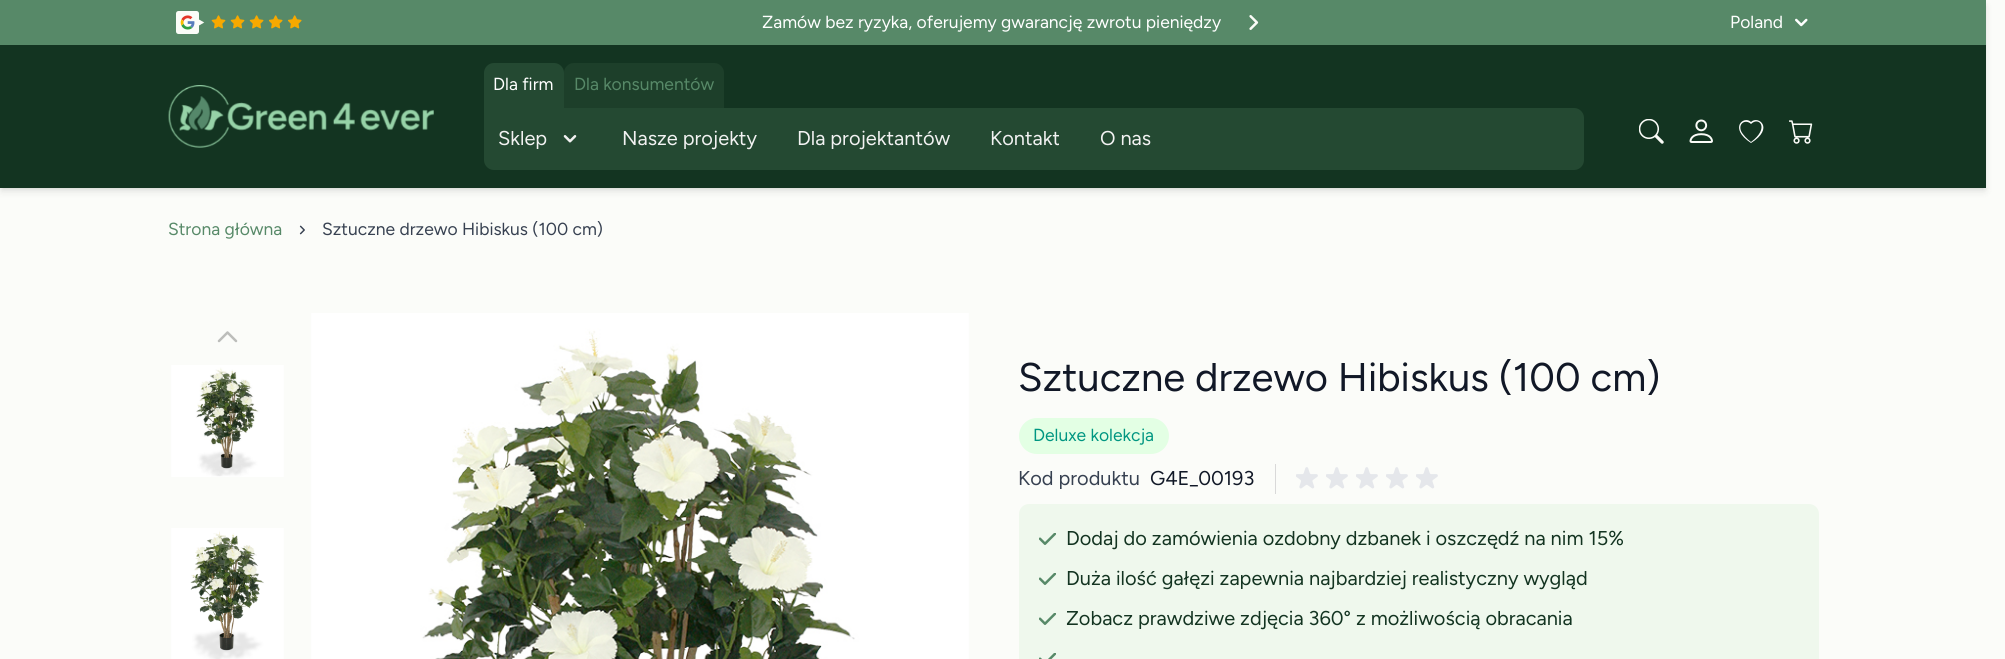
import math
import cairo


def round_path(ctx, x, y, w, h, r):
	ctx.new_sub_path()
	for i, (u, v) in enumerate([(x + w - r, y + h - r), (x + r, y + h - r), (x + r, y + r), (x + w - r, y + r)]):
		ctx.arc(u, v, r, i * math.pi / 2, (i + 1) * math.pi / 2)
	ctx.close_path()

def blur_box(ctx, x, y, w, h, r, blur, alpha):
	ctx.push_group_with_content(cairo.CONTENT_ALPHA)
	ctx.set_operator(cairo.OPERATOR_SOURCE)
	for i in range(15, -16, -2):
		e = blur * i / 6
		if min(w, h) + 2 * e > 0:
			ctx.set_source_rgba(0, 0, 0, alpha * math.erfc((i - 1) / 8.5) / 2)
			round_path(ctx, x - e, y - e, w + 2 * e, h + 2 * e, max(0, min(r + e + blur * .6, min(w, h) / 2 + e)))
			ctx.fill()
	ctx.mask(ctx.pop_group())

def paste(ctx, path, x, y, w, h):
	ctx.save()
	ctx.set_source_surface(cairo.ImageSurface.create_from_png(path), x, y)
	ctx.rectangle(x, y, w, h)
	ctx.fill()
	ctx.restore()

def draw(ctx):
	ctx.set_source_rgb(0.984, 0.988, 0.973)
	ctx.paint()
	ctx.set_source_rgb(0, 0, 0)
	blur_box(ctx, 3, 5, 1981, 183, 0, 2.5, 0.1)
	blur_box(ctx, 1, 6, 1984, 185, 0, 4, 0.1)
	ctx.set_source_rgb(0.341, 0.537, 0.408)
	ctx.rectangle(0, 0, 1986, 45)
	ctx.fill()
	paste(ctx, 'media/1.png', 176, 11, 126, 23)
	ctx.select_font_face('Figtree')
	ctx.set_font_size(17.5)
	ctx.set_source_rgb(1, 1, 1)
	ctx.move_to(762, 28)
	ctx.show_text('Zamów bez ryzyka, oferujemy gwarancję zwrotu pieniędzy')
	paste(ctx, 'media/2.png', 1249, 15, 10, 15)
	ctx.move_to(1730, 28)
	ctx.show_text('Poland')
	paste(ctx, 'media/3.png', 1795, 18, 13, 9)
	ctx.set_source_rgb(0.078, 0.204, 0.129)
	ctx.rectangle(0, 45, 1986, 143)
	ctx.fill()
	paste(ctx, 'media/4.png', 168, 85, 266, 63)
	ctx.set_source_rgb(0.141, 0.286, 0.196)
	ctx.new_path()
	ctx.move_to(494, 63)
	ctx.line_to(554, 63)
	ctx.curve_to(559.5, 63, 564, 67.5, 564, 73)
	ctx.line_to(564, 108)
	ctx.line_to(484, 108)
	ctx.line_to(484, 73)
	ctx.curve_to(484, 67.5, 488.5, 63, 494, 63)
	ctx.close_path()
	ctx.fill()
	ctx.set_source_rgb(1, 1, 1)
	ctx.move_to(493, 90)
	ctx.show_text('Dla firm')
	ctx.set_source_rgb(0.114, 0.247, 0.165)
	ctx.new_path()
	ctx.move_to(574, 63)
	ctx.line_to(714, 63)
	ctx.curve_to(719.5, 63, 724, 67.5, 724, 73)
	ctx.line_to(724, 108)
	ctx.line_to(564, 108)
	ctx.line_to(564, 73)
	ctx.curve_to(564, 67.5, 568.5, 63, 574, 63)
	ctx.close_path()
	ctx.fill()
	ctx.set_source_rgb(0.341, 0.537, 0.408)
	ctx.move_to(574, 90)
	ctx.show_text('Dla konsumentów')
	ctx.set_source_rgb(0.141, 0.286, 0.196)
	ctx.new_path()
	ctx.move_to(484, 108)
	ctx.line_to(1574, 108)
	ctx.curve_to(1579.5, 108, 1584, 112.5, 1584, 118)
	ctx.line_to(1584, 160)
	ctx.curve_to(1584, 165.5, 1579.5, 170, 1574, 170)
	ctx.line_to(494, 170)
	ctx.curve_to(488.5, 170, 484, 165.5, 484, 160)
	ctx.close_path()
	ctx.fill()
	ctx.set_font_size(20)
	ctx.set_source_rgb(0.949, 0.949, 0.949)
	ctx.move_to(498, 145)
	ctx.show_text('Sklep')
	paste(ctx, 'media/5.png', 563, 135, 14, 8)
	for x, y, s in [
		(622, 145, 'Nasze projekty'),
		(797, 145, 'Dla projektantów'),
		(990, 145, 'Kontakt'),
		(1100, 145, 'O nas'),
	]:
		ctx.move_to(x, y)
		ctx.show_text(s)
	paste(ctx, 'media/6.png', 1639, 119, 25, 25)
	paste(ctx, 'media/7.png', 1689, 119, 24, 24)
	ctx.set_source_rgb(1, 1, 1)
	ctx.new_path()
	ctx.move_to(1751, 124)
	ctx.curve_to(1746, 119, 1738, 123, 1741, 131)
	ctx.curve_to(1743, 135, 1747, 139, 1751, 142)
	ctx.curve_to(1770, 128, 1759, 116, 1751, 124)
	ctx.close_path()
	ctx.move_to(1751, 143)
	ctx.curve_to(1728, 128, 1744, 115, 1751, 122)
	ctx.curve_to(1758, 115, 1775, 128, 1751, 143)
	ctx.close_path()
	ctx.fill()
	paste(ctx, 'media/8.png', 1789, 120, 24, 24)
	ctx.set_font_size(17.5)
	ctx.set_source_rgb(0.341, 0.537, 0.408)
	ctx.move_to(168, 235)
	ctx.show_text('Strona główna')
	paste(ctx, 'media/9.png', 299, 225, 6, 10)
	ctx.set_source_rgb(0.216, 0.255, 0.318)
	ctx.move_to(322, 235)
	ctx.show_text('Sztuczne drzewo Hibiskus (100 cm)')
	ctx.new_path()
	ctx.move_to(219, 341)
	ctx.line_to(227.5, 332.5)
	ctx.line_to(236, 341)
	ctx.set_source_rgb(0.737, 0.741, 0.729)
	ctx.set_line_width(2.5)
	ctx.set_line_cap(cairo.LINE_CAP_ROUND)
	ctx.set_line_join(cairo.LINE_JOIN_ROUND)
	ctx.stroke()
	paste(ctx, 'media/10.png', 171, 365, 113, 112)
	paste(ctx, 'media/11.png', 171, 528, 113, 131)
	paste(ctx, 'media/12.png', 311, 313, 658, 346)
	ctx.set_font_size(40)
	ctx.set_source_rgb(0.067, 0.094, 0.153)
	ctx.move_to(1018, 391)
	ctx.show_text('Sztuczne drzewo Hibiskus (100 cm)')
	ctx.set_source_rgb(0.89, 1, 0.894)
	round_path(ctx, 1019, 418, 150, 36, 18)
	ctx.fill()
	ctx.set_font_size(17.5)
	ctx.set_source_rgb(0, 0.588, 0.506)
	ctx.move_to(1033, 441)
	ctx.show_text('Deluxe kolekcja')
	ctx.set_font_size(20)
	ctx.set_source_rgb(0.216, 0.255, 0.318)
	ctx.move_to(1018, 485)
	ctx.show_text('Kod produktu')
	ctx.set_source_rgb(0.851, 0.851, 0.851)
	ctx.rectangle(1275, 464, 1, 30)
	ctx.fill()
	ctx.set_source_rgb(0.067, 0.094, 0.153)
	ctx.move_to(1150, 485)
	ctx.show_text('G4E_00193')
	paste(ctx, 'media/13.png', 1296, 467, 22, 22)
	paste(ctx, 'media/13.png', 1326, 467, 22, 22)
	paste(ctx, 'media/13.png', 1356, 467, 22, 22)
	paste(ctx, 'media/13.png', 1386, 467, 22, 22)
	paste(ctx, 'media/13.png', 1416, 467, 22, 22)
	ctx.set_source_rgb(0.937, 0.969, 0.929)
	round_path(ctx, 1019, 504, 800, 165, 10)
	ctx.fill()
	paste(ctx, 'media/14.png', 1039, 533, 17, 12)
	ctx.set_source_rgb(0.078, 0.204, 0.129)
	ctx.move_to(1066, 545)
	ctx.show_text('Dodaj do zamówienia ozdobny dzbanek i oszczędź na nim 15%')
	paste(ctx, 'media/14.png', 1039, 573, 17, 12)
	ctx.move_to(1066, 585)
	ctx.show_text('Duża ilość gałęzi zapewnia najbardziej realistyczny wygląd')
	paste(ctx, 'media/14.png', 1039, 613, 17, 12)
	ctx.move_to(1066, 625)
	ctx.show_text('Zobacz prawdziwe zdjęcia 360° z możliwością obracania')
	paste(ctx, 'media/15.png', 1039, 653, 17, 6)


surface = cairo.ImageSurface(cairo.FORMAT_RGB24, 2005, 659)
ctx = cairo.Context(surface)
options = cairo.FontOptions()
options.set_hint_metrics(cairo.HINT_METRICS_OFF)
options.set_hint_style(cairo.HINT_STYLE_NONE)
ctx.set_font_options(options)
ctx.set_miter_limit(4)
draw(ctx)
surface.write_to_png('image.png')
